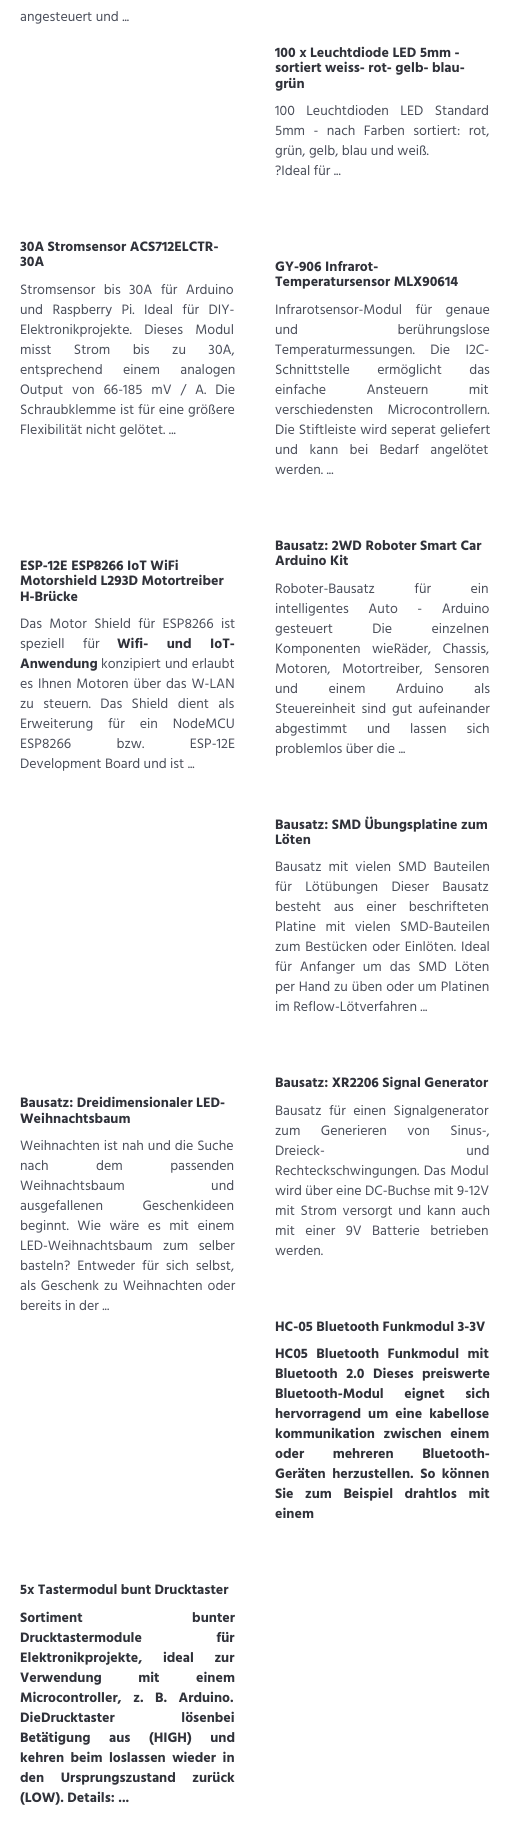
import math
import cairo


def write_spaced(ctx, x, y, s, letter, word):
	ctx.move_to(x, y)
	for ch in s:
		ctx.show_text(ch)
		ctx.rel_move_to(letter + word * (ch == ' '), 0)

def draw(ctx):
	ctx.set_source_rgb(1, 1, 1)
	ctx.paint()
	ctx.select_font_face('Hind')
	ctx.set_font_size(14)
	ctx.set_source_rgb(0.29, 0.306, 0.353)
	ctx.move_to(20, 21)
	ctx.show_text('angesteuert und ...')
	ctx.select_font_face('Hind', cairo.FONT_SLANT_NORMAL, cairo.FONT_WEIGHT_BOLD)
	ctx.set_source_rgb(0.188, 0.196, 0.227)
	for x, y, s in [
		(275, 57, '100 x Leuchtdiode LED 5mm -'),
		(275, 72, 'sortiert weiss- rot- gelb- blau-'),
		(275, 88, 'grün'),
	]:
		ctx.move_to(x, y)
		ctx.show_text(s)
	ctx.select_font_face('Hind')
	ctx.set_source_rgb(0.29, 0.306, 0.353)
	write_spaced(ctx, 275, 115, '100 Leuchtdioden LED Standard', 0, 8)
	write_spaced(ctx, 275, 135, '5mm - nach Farben sortiert: rot,', 0, 5)
	ctx.move_to(275, 155)
	ctx.show_text('grün, gelb, blau und weiß.')
	ctx.move_to(275, 175)
	ctx.show_text('?Ideal für ...')
	ctx.select_font_face('Hind', cairo.FONT_SLANT_NORMAL, cairo.FONT_WEIGHT_BOLD)
	ctx.set_source_rgb(0.188, 0.196, 0.227)
	ctx.move_to(20, 251)
	ctx.show_text('30A Stromsensor ACS712ELCTR-')
	ctx.move_to(20, 266)
	ctx.show_text('30A')
	ctx.select_font_face('Hind')
	ctx.set_source_rgb(0.29, 0.306, 0.353)
	write_spaced(ctx, 20, 294, 'Stromsensor bis 30A für Arduino', 0, 5)
	write_spaced(ctx, 20, 314, 'und Raspberry Pi. Ideal für DIY-', 0, 6)
	write_spaced(ctx, 20, 334, 'Elektronikprojekte. Dieses Modul', 0, 9)
	write_spaced(ctx, 20, 354, 'misst Strom bis zu 30A,', 0, 19)
	write_spaced(ctx, 20, 374, 'entsprechend einem analogen', 0, 17)
	write_spaced(ctx, 20, 394, 'Output von 66-185 mV / A. Die', 0, 5.5)
	write_spaced(ctx, 20, 414, 'Schraubklemme ist für eine größere', 0, 0.5)
	ctx.move_to(20, 434)
	ctx.show_text('Flexibilität nicht gelötet. ...')
	ctx.select_font_face('Hind', cairo.FONT_SLANT_NORMAL, cairo.FONT_WEIGHT_BOLD)
	ctx.set_source_rgb(0.188, 0.196, 0.227)
	ctx.move_to(275, 271)
	ctx.show_text('GY-906 Infrarot-')
	ctx.move_to(275, 286)
	ctx.show_text('Temperatursensor MLX90614')
	ctx.select_font_face('Hind')
	ctx.set_source_rgb(0.29, 0.306, 0.353)
	write_spaced(ctx, 275, 314, 'Infrarotsensor-Modul für genaue', 0, 10)
	write_spaced(ctx, 275, 334, 'und berührungslose', 0, 96)
	write_spaced(ctx, 275, 354, 'Temperaturmessungen. Die I2C-', 0, 12)
	write_spaced(ctx, 275, 374, 'Schnittstelle ermöglicht das', 0, 24)
	write_spaced(ctx, 275, 394, 'einfache Ansteuern mit', 0, 37)
	write_spaced(ctx, 275, 414, 'verschiedensten Microcontrollern.', 0, 11)
	write_spaced(ctx, 275, 434, 'Die Stiftleiste wird seperat geliefert', 0, 0.5)
	write_spaced(ctx, 275, 454, 'und kann bei Bedarf angelötet', 0, 8)
	ctx.move_to(275, 474)
	ctx.show_text('werden. ...')
	ctx.select_font_face('Hind', cairo.FONT_SLANT_NORMAL, cairo.FONT_WEIGHT_BOLD)
	ctx.set_source_rgb(0.188, 0.196, 0.227)
	for x, y, s in [
		(20, 570, 'ESP-12E ESP8266 IoT WiFi'),
		(20, 585, 'Motorshield L293D Motortreiber'),
		(20, 601, 'H-Brücke'),
	]:
		ctx.move_to(x, y)
		ctx.show_text(s)
	ctx.select_font_face('Hind')
	ctx.set_source_rgb(0.29, 0.306, 0.353)
	write_spaced(ctx, 20, 628, 'Das Motor Shield für ESP8266 ist', 0, 4)
	write_spaced(ctx, 20, 648, 'speziell für', 0, 15)
	ctx.select_font_face('Hind', cairo.FONT_SLANT_NORMAL, cairo.FONT_WEIGHT_BOLD)
	ctx.set_source_rgb(0.188, 0.196, 0.227)
	write_spaced(ctx, 117, 648, 'Wifi- und IoT-', 0, 15)
	ctx.move_to(20, 668)
	ctx.show_text('Anwendung')
	ctx.select_font_face('Hind')
	ctx.set_source_rgb(0.29, 0.306, 0.353)
	write_spaced(ctx, 101, 668, 'konzipiert und erlaubt', 0, 0.5)
	write_spaced(ctx, 20, 688, 'es Ihnen Motoren über das W-LAN', 0, 1.5)
	write_spaced(ctx, 20, 708, 'zu steuern. Das Shield dient als', 0, 6)
	write_spaced(ctx, 20, 728, 'Erweiterung für ein NodeMCU', 0, 11.5)
	write_spaced(ctx, 20, 748, 'ESP8266 bzw. ESP-12E', 0, 42)
	ctx.move_to(20, 768)
	ctx.show_text('Development Board und ist ...')
	ctx.select_font_face('Hind', cairo.FONT_SLANT_NORMAL, cairo.FONT_WEIGHT_BOLD)
	ctx.set_source_rgb(0.188, 0.196, 0.227)
	ctx.move_to(275, 550)
	ctx.show_text('Bausatz: 2WD Roboter Smart Car')
	ctx.move_to(275, 565)
	ctx.show_text('Arduino Kit')
	ctx.select_font_face('Hind')
	ctx.set_source_rgb(0.29, 0.306, 0.353)
	write_spaced(ctx, 275, 593, 'Roboter-Bausatz für ein', 0, 36)
	write_spaced(ctx, 275, 613, 'intelligentes Auto - Arduino', 0, 16)
	write_spaced(ctx, 275, 633, 'gesteuert Die einzelnen', 0, 36)
	write_spaced(ctx, 275, 653, 'Komponenten wieRäder, Chassis,', 0, 8)
	write_spaced(ctx, 275, 673, 'Motoren, Motortreiber, Sensoren', 0, 8)
	write_spaced(ctx, 275, 693, 'und einem Arduino als', 0, 27)
	write_spaced(ctx, 275, 713, 'Steuereinheit sind gut aufeinander', 0, 2.5)
	write_spaced(ctx, 275, 733, 'abgestimmt und lassen sich', 0, 16.5)
	ctx.move_to(275, 753)
	ctx.show_text('problemlos über die ...')
	ctx.select_font_face('Hind', cairo.FONT_SLANT_NORMAL, cairo.FONT_WEIGHT_BOLD)
	ctx.set_source_rgb(0.188, 0.196, 0.227)
	ctx.move_to(275, 829)
	ctx.show_text('Bausatz: SMD Übungsplatine zum')
	ctx.move_to(275, 844)
	ctx.show_text('Löten')
	ctx.select_font_face('Hind')
	ctx.set_source_rgb(0.29, 0.306, 0.353)
	write_spaced(ctx, 275, 871, 'Bausatz mit vielen SMD Bauteilen', 0, 3.5)
	write_spaced(ctx, 275, 891, 'für Lötübungen Dieser Bausatz', 0, 10)
	write_spaced(ctx, 275, 911, 'besteht aus einer beschrifteten', 0, 9)
	write_spaced(ctx, 275, 931, 'Platine mit vielen SMD-Bauteilen', 0, 6)
	write_spaced(ctx, 275, 951, 'zum Bestücken oder Einlöten. Ideal', 0, 1.5)
	write_spaced(ctx, 275, 971, 'für Anfanger um das SMD Löten', 0, 4.5)
	write_spaced(ctx, 275, 991, 'per Hand zu üben oder um Platinen', 0, 0.5)
	ctx.move_to(275, 1011)
	ctx.show_text('im Reflow-Lötverfahren ...')
	ctx.select_font_face('Hind', cairo.FONT_SLANT_NORMAL, cairo.FONT_WEIGHT_BOLD)
	ctx.set_source_rgb(0.188, 0.196, 0.227)
	ctx.move_to(20, 1107)
	ctx.show_text('Bausatz: Dreidimensionaler LED-')
	ctx.move_to(20, 1123)
	ctx.show_text('Weihnachtsbaum')
	ctx.select_font_face('Hind')
	ctx.set_source_rgb(0.29, 0.306, 0.353)
	write_spaced(ctx, 20, 1150, 'Weihnachten ist nah und die Suche', 0, 0.5)
	write_spaced(ctx, 20, 1170, 'nach dem passenden', 0, 44)
	write_spaced(ctx, 20, 1190, 'Weihnachtsbaum und', 0, 83)
	write_spaced(ctx, 20, 1210, 'ausgefallenen Geschenkideen', 0, 36)
	write_spaced(ctx, 20, 1230, 'beginnt. Wie wäre es mit einem', 0, 5)
	write_spaced(ctx, 20, 1250, 'LED-Weihnachtsbaum zum selber', 0, 7)
	write_spaced(ctx, 20, 1270, 'basteln? Entweder für sich selbst,', 0, 3.5)
	write_spaced(ctx, 20, 1290, 'als Geschenk zu Weihnachten oder', 0, 1.5)
	ctx.move_to(20, 1310)
	ctx.show_text('bereits in der ...')
	ctx.select_font_face('Hind', cairo.FONT_SLANT_NORMAL, cairo.FONT_WEIGHT_BOLD)
	ctx.set_source_rgb(0.188, 0.196, 0.227)
	ctx.move_to(275, 1087)
	ctx.show_text('Bausatz: XR2206 Signal Generator')
	ctx.select_font_face('Hind')
	ctx.set_source_rgb(0.29, 0.306, 0.353)
	write_spaced(ctx, 275, 1115, 'Bausatz für einen Signalgenerator', 0, 4)
	write_spaced(ctx, 275, 1135, 'zum Generieren von Sinus-,', 0, 17)
	write_spaced(ctx, 275, 1155, 'Dreieck- und', 0, 138)
	write_spaced(ctx, 275, 1175, 'Rechteckschwingungen. Das Modul', 0, 1)
	ctx.move_to(275, 1195)
	ctx.show_text('wird über eine DC-Buchse mit 9-12V')
	write_spaced(ctx, 275, 1215, 'mit Strom versorgt und kann auch', 0, 2.25)
	write_spaced(ctx, 275, 1235, 'mit einer 9V Batterie betrieben', 0, 7)
	ctx.move_to(275, 1255)
	ctx.show_text('werden.')
	ctx.select_font_face('Hind', cairo.FONT_SLANT_NORMAL, cairo.FONT_WEIGHT_BOLD)
	ctx.set_source_rgb(0.188, 0.196, 0.227)
	ctx.move_to(275, 1331)
	ctx.show_text('HC-05 Bluetooth Funkmodul 3-3V')
	write_spaced(ctx, 275, 1358, 'HC05 Bluetooth Funkmodul mit', 0, 5)
	write_spaced(ctx, 275, 1378, 'Bluetooth 2.0 Dieses preiswerte', 0, 5)
	write_spaced(ctx, 275, 1398, 'Bluetooth-Modul eignet sich', 0, 17)
	write_spaced(ctx, 275, 1418, 'hervorragend um eine kabellose', 0, 3.5)
	write_spaced(ctx, 275, 1438, 'kommunikation zwischen einem', 0, 5)
	write_spaced(ctx, 275, 1458, 'oder mehreren Bluetooth-', 0, 25)
	write_spaced(ctx, 275, 1478, 'Geräten herzustellen. So können', 0, 3)
	write_spaced(ctx, 275, 1498, 'Sie zum Beispiel drahtlos mit', 0, 8)
	ctx.move_to(275, 1518)
	ctx.show_text('einem')
	ctx.move_to(20, 1594)
	ctx.show_text('5x Tastermodul bunt Drucktaster')
	write_spaced(ctx, 20, 1622, 'Sortiment bunter', 0, 106)
	write_spaced(ctx, 20, 1642, 'Drucktastermodule für', 0, 71)
	write_spaced(ctx, 20, 1662, 'Elektronikprojekte, ideal zur', 0, 17)
	write_spaced(ctx, 20, 1682, 'Verwendung mit einem', 0, 33)
	write_spaced(ctx, 20, 1702, 'Microcontroller, z. B. Arduino.', 0, 8)
	write_spaced(ctx, 20, 1722, 'DieDrucktaster lösenbei', 0, 63)
	write_spaced(ctx, 20, 1742, 'Betätigung aus (HIGH) und', 0, 15)
	write_spaced(ctx, 20, 1762, 'kehren beim loslassen wieder in', 0, 3)
	write_spaced(ctx, 20, 1782, 'den Ursprungszustand zurück', 0, 13)
	ctx.move_to(20, 1802)
	ctx.show_text('(LOW). Details: ...')


surface = cairo.ImageSurface(cairo.FORMAT_RGB24, 509, 1827)
ctx = cairo.Context(surface)
options = cairo.FontOptions()
options.set_hint_metrics(cairo.HINT_METRICS_OFF)
options.set_hint_style(cairo.HINT_STYLE_NONE)
ctx.set_font_options(options)
ctx.set_miter_limit(4)
draw(ctx)
surface.write_to_png('image.png')
